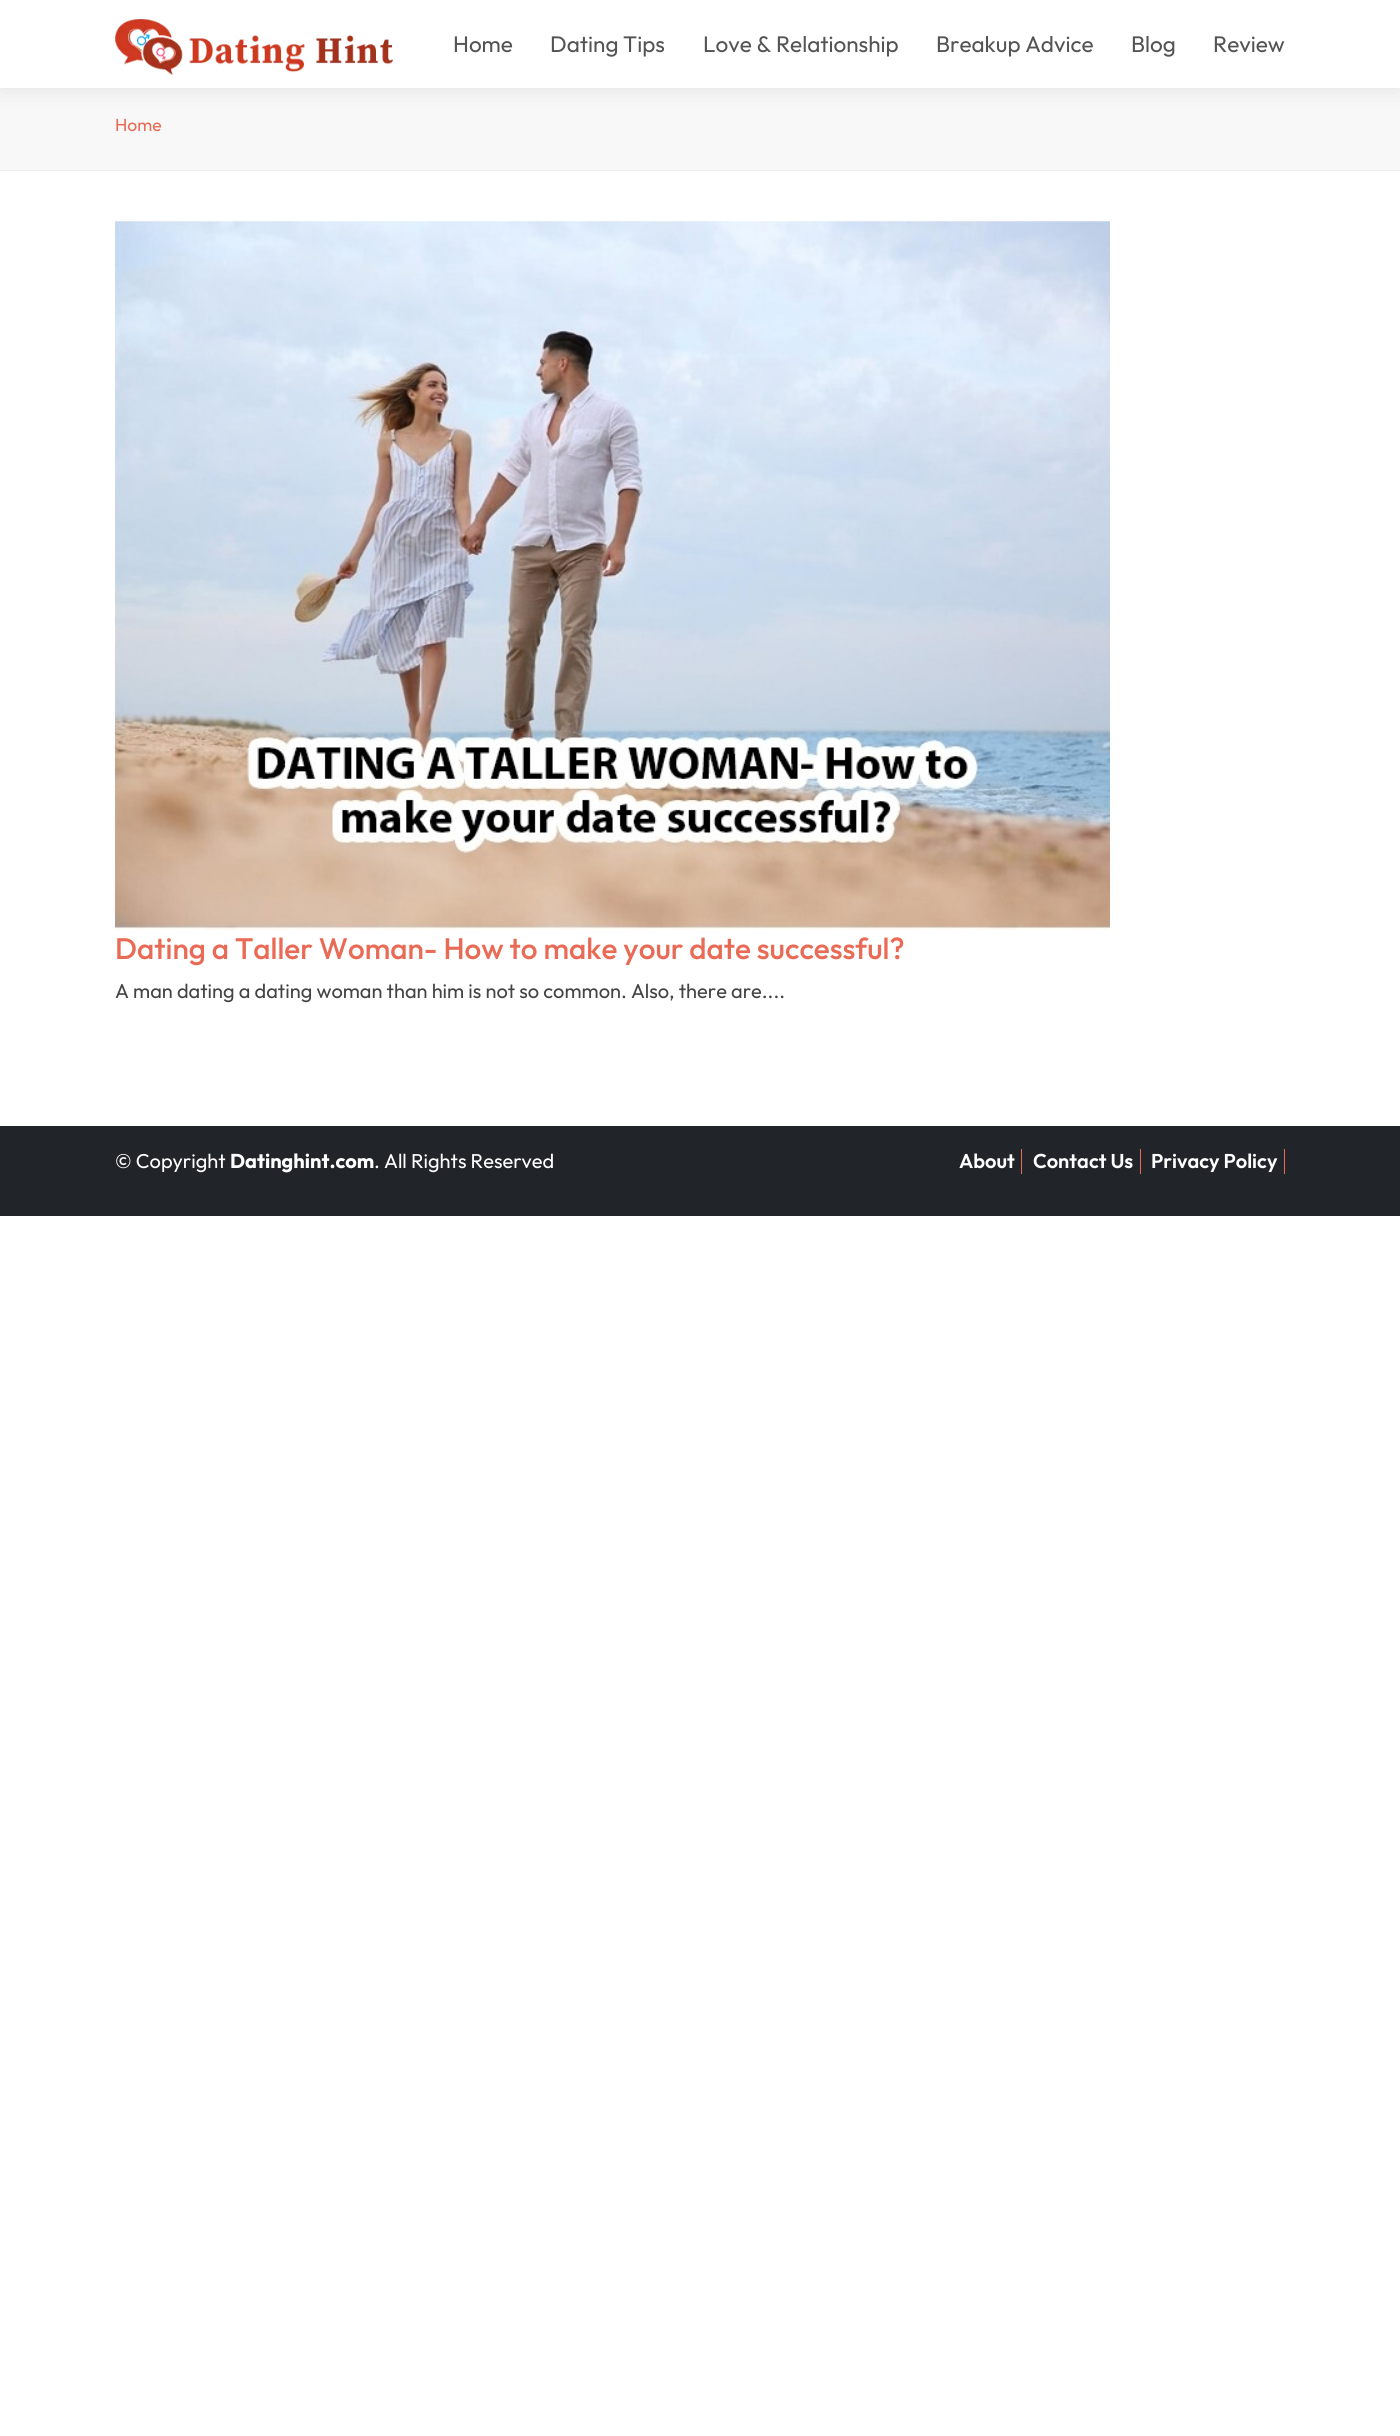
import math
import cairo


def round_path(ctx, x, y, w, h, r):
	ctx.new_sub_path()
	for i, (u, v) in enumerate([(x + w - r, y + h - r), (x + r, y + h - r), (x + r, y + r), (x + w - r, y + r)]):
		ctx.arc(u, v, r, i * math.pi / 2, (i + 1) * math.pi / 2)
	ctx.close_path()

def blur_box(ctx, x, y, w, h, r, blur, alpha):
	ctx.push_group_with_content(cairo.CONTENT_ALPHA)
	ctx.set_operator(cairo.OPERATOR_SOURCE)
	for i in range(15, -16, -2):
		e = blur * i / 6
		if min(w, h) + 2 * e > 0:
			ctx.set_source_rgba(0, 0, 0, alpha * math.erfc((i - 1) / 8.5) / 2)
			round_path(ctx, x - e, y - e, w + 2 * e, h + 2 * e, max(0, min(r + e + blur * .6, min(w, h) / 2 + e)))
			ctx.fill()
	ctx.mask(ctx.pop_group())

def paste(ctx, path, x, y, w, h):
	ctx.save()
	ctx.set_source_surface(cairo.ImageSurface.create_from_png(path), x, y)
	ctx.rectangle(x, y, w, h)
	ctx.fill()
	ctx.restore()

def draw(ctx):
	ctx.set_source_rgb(1, 1, 1)
	ctx.paint()
	ctx.set_source_rgb(0.969, 0.969, 0.969)
	ctx.rectangle(0, 88, 1400, 82)
	ctx.fill()
	ctx.set_source_rgb(0, 0, 0)
	blur_box(ctx, 0, 0, 1400, 88, 0, 12.5, 0.1)
	ctx.set_source_rgb(1, 1, 1)
	ctx.rectangle(0, 0, 1400, 88)
	ctx.fill()
	paste(ctx, 'media/1.png', 115, 19, 278, 56)
	ctx.select_font_face('Outfit')
	ctx.set_font_size(22.5)
	ctx.set_source_rgb(0.329, 0.329, 0.329)
	for x, y, s in [
		(453, 52, 'Home'),
		(550, 52, 'Dating Tips'),
		(703, 52, 'Love & Relationship'),
		(936, 52, 'Breakup Advice'),
		(1131, 52, 'Blog'),
		(1213, 52, 'Review'),
	]:
		ctx.move_to(x, y)
		ctx.show_text(s)
	ctx.set_source_rgb(0.929, 0.929, 0.929)
	ctx.rectangle(0, 170, 1400, 1)
	ctx.fill()
	ctx.set_font_size(17.5)
	ctx.set_source_rgb(0.914, 0.42, 0.337)
	ctx.move_to(115, 131)
	ctx.show_text('Home')
	paste(ctx, 'media/2.png', 115, 221, 995, 709)
	ctx.select_font_face('Outfit Medium')
	ctx.set_font_size(29.7)
	ctx.move_to(115, 959)
	ctx.show_text('Dating a Taller Woman- How to make your date successful?')
	ctx.select_font_face('Outfit')
	ctx.set_font_size(20)
	ctx.set_source_rgb(0.267, 0.267, 0.267)
	ctx.move_to(115, 998)
	ctx.show_text('A man dating a dating woman than him is not so common. Also, there are....')
	ctx.set_source_rgb(0.129, 0.145, 0.161)
	ctx.rectangle(0, 1126, 1400, 90)
	ctx.fill()
	ctx.set_source_rgb(1, 1, 1)
	ctx.move_to(115, 1168)
	ctx.show_text('© Copyright')
	ctx.select_font_face('Outfit', cairo.FONT_SLANT_NORMAL, cairo.FONT_WEIGHT_BOLD)
	ctx.move_to(230, 1168)
	ctx.show_text('Datinghint.com')
	ctx.select_font_face('Outfit')
	ctx.move_to(374, 1168)
	ctx.show_text('. All Rights Reserved')
	ctx.select_font_face('Outfit SemiBold')
	ctx.move_to(959, 1168)
	ctx.show_text('About')
	ctx.set_source_rgb(0.914, 0.42, 0.337)
	ctx.rectangle(1021, 1149, 1, 25)
	ctx.fill()
	ctx.set_source_rgb(1, 1, 1)
	ctx.move_to(1033, 1168)
	ctx.show_text('Contact Us')
	ctx.set_source_rgb(0.914, 0.42, 0.337)
	ctx.rectangle(1140, 1149, 1, 25)
	ctx.fill()
	ctx.set_source_rgb(1, 1, 1)
	ctx.move_to(1151, 1168)
	ctx.show_text('Privacy Policy')
	ctx.set_source_rgb(0.914, 0.42, 0.337)
	ctx.rectangle(1284, 1149, 1, 25)
	ctx.fill()


surface = cairo.ImageSurface(cairo.FORMAT_RGB24, 1400, 2436)
ctx = cairo.Context(surface)
options = cairo.FontOptions()
options.set_hint_metrics(cairo.HINT_METRICS_OFF)
options.set_hint_style(cairo.HINT_STYLE_NONE)
ctx.set_font_options(options)
ctx.set_miter_limit(4)
draw(ctx)
surface.write_to_png('image.png')
